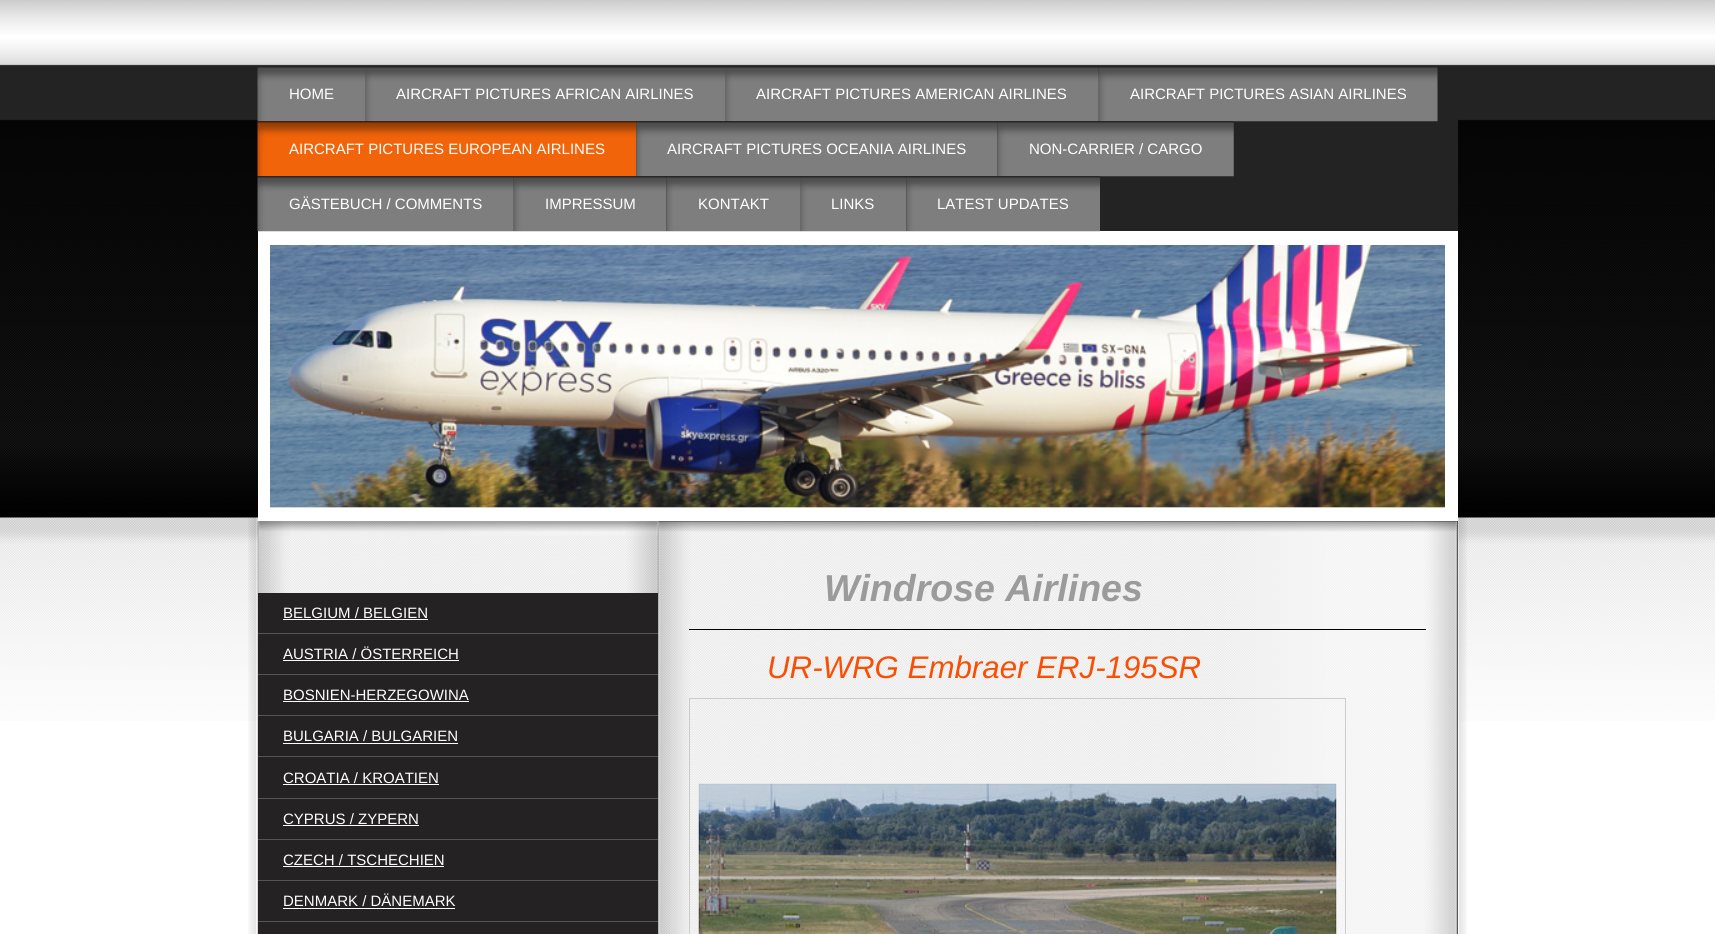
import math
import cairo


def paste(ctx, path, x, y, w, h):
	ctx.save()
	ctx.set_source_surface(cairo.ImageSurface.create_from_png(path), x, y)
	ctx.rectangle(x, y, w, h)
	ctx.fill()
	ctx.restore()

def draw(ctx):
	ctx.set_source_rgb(1, 1, 1)
	ctx.paint()
	paste(ctx, 'media/1.png', 0, 0, 1715, 721)
	ctx.set_source_rgb(0.137, 0.137, 0.137)
	ctx.rectangle(258, 119, 1200, 112)
	ctx.fill()
	paste(ctx, 'media/2.png', 257, 67, 108, 55)
	ctx.select_font_face('Liberation Sans')
	ctx.set_font_size(15)
	ctx.set_source_rgb(1, 1, 1)
	ctx.move_to(289, 99)
	ctx.show_text('HOME')
	paste(ctx, 'media/3.png', 365, 67, 360, 55)
	ctx.move_to(396, 99)
	ctx.show_text('AIRCRAFT PICTURES AFRICAN AIRLINES')
	paste(ctx, 'media/4.png', 725, 67, 374, 55)
	ctx.move_to(756, 99)
	ctx.show_text('AIRCRAFT PICTURES AMERICAN AIRLINES')
	paste(ctx, 'media/5.png', 1099, 67, 339, 55)
	ctx.move_to(1130, 99)
	ctx.show_text('AIRCRAFT PICTURES ASIAN AIRLINES')
	paste(ctx, 'media/6.png', 257, 121, 380, 56)
	ctx.move_to(289, 154)
	ctx.show_text('AIRCRAFT PICTURES EUROPEAN AIRLINES')
	paste(ctx, 'media/7.png', 636, 121, 362, 56)
	ctx.move_to(667, 154)
	ctx.show_text('AIRCRAFT PICTURES OCEANIA AIRLINES')
	paste(ctx, 'media/8.png', 997, 121, 237, 56)
	ctx.move_to(1029, 154)
	ctx.show_text('NON-CARRIER / CARGO')
	ctx.rectangle(258, 231, 1200, 14)
	ctx.fill()
	paste(ctx, 'media/9.png', 257, 176, 257, 56)
	ctx.move_to(289, 209)
	ctx.show_text('GÄSTEBUCH / COMMENTS')
	paste(ctx, 'media/10.png', 513, 176, 154, 56)
	ctx.move_to(545, 209)
	ctx.show_text('IMPRESSUM')
	paste(ctx, 'media/11.png', 666, 176, 134, 56)
	ctx.move_to(698, 209)
	ctx.show_text('KONTAKT')
	paste(ctx, 'media/12.png', 800, 176, 107, 56)
	ctx.move_to(831, 209)
	ctx.show_text('LINKS')
	paste(ctx, 'media/13.png', 906, 176, 194, 56)
	ctx.move_to(937, 209)
	ctx.show_text('LATEST UPDATES')
	ctx.rectangle(258, 245, 1200, 276)
	ctx.fill()
	ctx.set_source_rgb(0.933, 0.933, 0.933)
	ctx.rectangle(270, 507, 1175, 1)
	ctx.fill()
	paste(ctx, 'media/14.png', 270, 245, 1175, 263)
	paste(ctx, 'media/15.png', 248, 517, 9, 417)
	ctx.set_source_rgb(0, 0, 0)
	ctx.rectangle(258, 521, 1200, 413)
	ctx.fill()
	paste(ctx, 'media/16.png', 257, 521, 1201, 413)
	paste(ctx, 'media/17.png', 257, 521, 401, 15)
	ctx.set_source_rgb(0.141, 0.133, 0.137)
	ctx.rectangle(258, 593, 400, 40)
	ctx.fill()
	ctx.set_source_rgb(0.333, 0.333, 0.333)
	ctx.rectangle(258, 633, 400, 1)
	ctx.fill()
	ctx.set_source_rgb(1, 1, 1)
	ctx.move_to(283, 618)
	ctx.show_text('BELGIUM / BELGIEN')
	ctx.rectangle(283, 619, 145, 1)
	ctx.fill()
	ctx.set_source_rgb(0.141, 0.133, 0.137)
	ctx.rectangle(258, 634, 400, 40)
	ctx.fill()
	ctx.set_source_rgb(0.333, 0.333, 0.333)
	ctx.rectangle(258, 674, 400, 1)
	ctx.fill()
	ctx.set_source_rgb(1, 1, 1)
	ctx.move_to(283, 659)
	ctx.show_text('AUSTRIA / ÖSTERREICH')
	ctx.rectangle(283, 660, 176, 1)
	ctx.fill()
	ctx.set_source_rgb(0.141, 0.133, 0.137)
	ctx.rectangle(258, 675, 400, 40)
	ctx.fill()
	ctx.set_source_rgb(0.333, 0.333, 0.333)
	ctx.rectangle(258, 715, 400, 1)
	ctx.fill()
	ctx.set_source_rgb(1, 1, 1)
	ctx.move_to(283, 700)
	ctx.show_text('BOSNIEN-HERZEGOWINA')
	ctx.rectangle(283, 701, 186, 1)
	ctx.fill()
	ctx.set_source_rgb(0.141, 0.133, 0.137)
	ctx.rectangle(258, 716, 400, 82)
	ctx.fill()
	ctx.set_source_rgb(0.333, 0.333, 0.333)
	ctx.rectangle(258, 756, 400, 1)
	ctx.fill()
	ctx.set_source_rgb(1, 1, 1)
	ctx.move_to(283, 741)
	ctx.show_text('BULGARIA / BULGARIEN')
	ctx.rectangle(283, 743, 175, 1)
	ctx.fill()
	ctx.set_source_rgb(0.333, 0.333, 0.333)
	ctx.rectangle(258, 798, 400, 1)
	ctx.fill()
	ctx.set_source_rgb(1, 1, 1)
	ctx.move_to(283, 783)
	ctx.show_text('CROATIA / KROATIEN')
	ctx.rectangle(283, 784, 156, 1)
	ctx.fill()
	ctx.set_source_rgb(0.141, 0.133, 0.137)
	ctx.rectangle(258, 799, 400, 40)
	ctx.fill()
	ctx.set_source_rgb(0.333, 0.333, 0.333)
	ctx.rectangle(258, 839, 400, 1)
	ctx.fill()
	ctx.set_source_rgb(1, 1, 1)
	ctx.move_to(283, 824)
	ctx.show_text('CYPRUS / ZYPERN')
	ctx.rectangle(283, 825, 136, 1)
	ctx.fill()
	ctx.set_source_rgb(0.141, 0.133, 0.137)
	ctx.rectangle(258, 840, 400, 40)
	ctx.fill()
	ctx.set_source_rgb(0.333, 0.333, 0.333)
	ctx.rectangle(258, 880, 400, 1)
	ctx.fill()
	ctx.set_source_rgb(1, 1, 1)
	ctx.move_to(283, 865)
	ctx.show_text('CZECH / TSCHECHIEN')
	ctx.rectangle(283, 866, 161, 1)
	ctx.fill()
	ctx.set_source_rgb(0.141, 0.133, 0.137)
	ctx.rectangle(258, 881, 400, 53)
	ctx.fill()
	ctx.set_source_rgb(0.333, 0.333, 0.333)
	ctx.rectangle(258, 921, 400, 1)
	ctx.fill()
	ctx.set_source_rgb(1, 1, 1)
	ctx.move_to(283, 906)
	ctx.show_text('DENMARK / DÄNEMARK')
	ctx.rectangle(283, 908, 172, 1)
	ctx.fill()
	ctx.set_source_rgb(0, 0, 0)
	ctx.rectangle(658, 521, 800, 15)
	ctx.fill()
	paste(ctx, 'media/18.png', 657, 521, 801, 16)
	ctx.select_font_face('Liberation Sans', cairo.FONT_SLANT_ITALIC, cairo.FONT_WEIGHT_BOLD)
	ctx.set_font_size(37.5)
	ctx.set_source_rgb(0.608, 0.608, 0.608)
	ctx.move_to(824, 601)
	ctx.show_text('Windrose Airlines')
	ctx.set_source_rgb(0, 0, 0)
	ctx.rectangle(689, 629, 737, 1)
	ctx.fill()
	ctx.select_font_face('Liberation Sans', cairo.FONT_SLANT_ITALIC)
	ctx.set_font_size(31.25)
	ctx.set_source_rgb(0.976, 0.31, 0.016)
	ctx.move_to(767, 678)
	ctx.show_text('UR-WRG Embraer ERJ-195SR')
	ctx.rectangle(689.5, 698.5, 656, 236)
	ctx.set_source_rgb(0.8, 0.8, 0.8)
	ctx.set_line_width(1)
	ctx.stroke()
	paste(ctx, 'media/19.png', 698, 783, 639, 151)
	paste(ctx, 'media/20.png', 1458, 517, 9, 417)


surface = cairo.ImageSurface(cairo.FORMAT_RGB24, 1715, 934)
ctx = cairo.Context(surface)
options = cairo.FontOptions()
options.set_hint_metrics(cairo.HINT_METRICS_OFF)
options.set_hint_style(cairo.HINT_STYLE_NONE)
ctx.set_font_options(options)
ctx.set_miter_limit(4)
draw(ctx)
surface.write_to_png('image.png')
